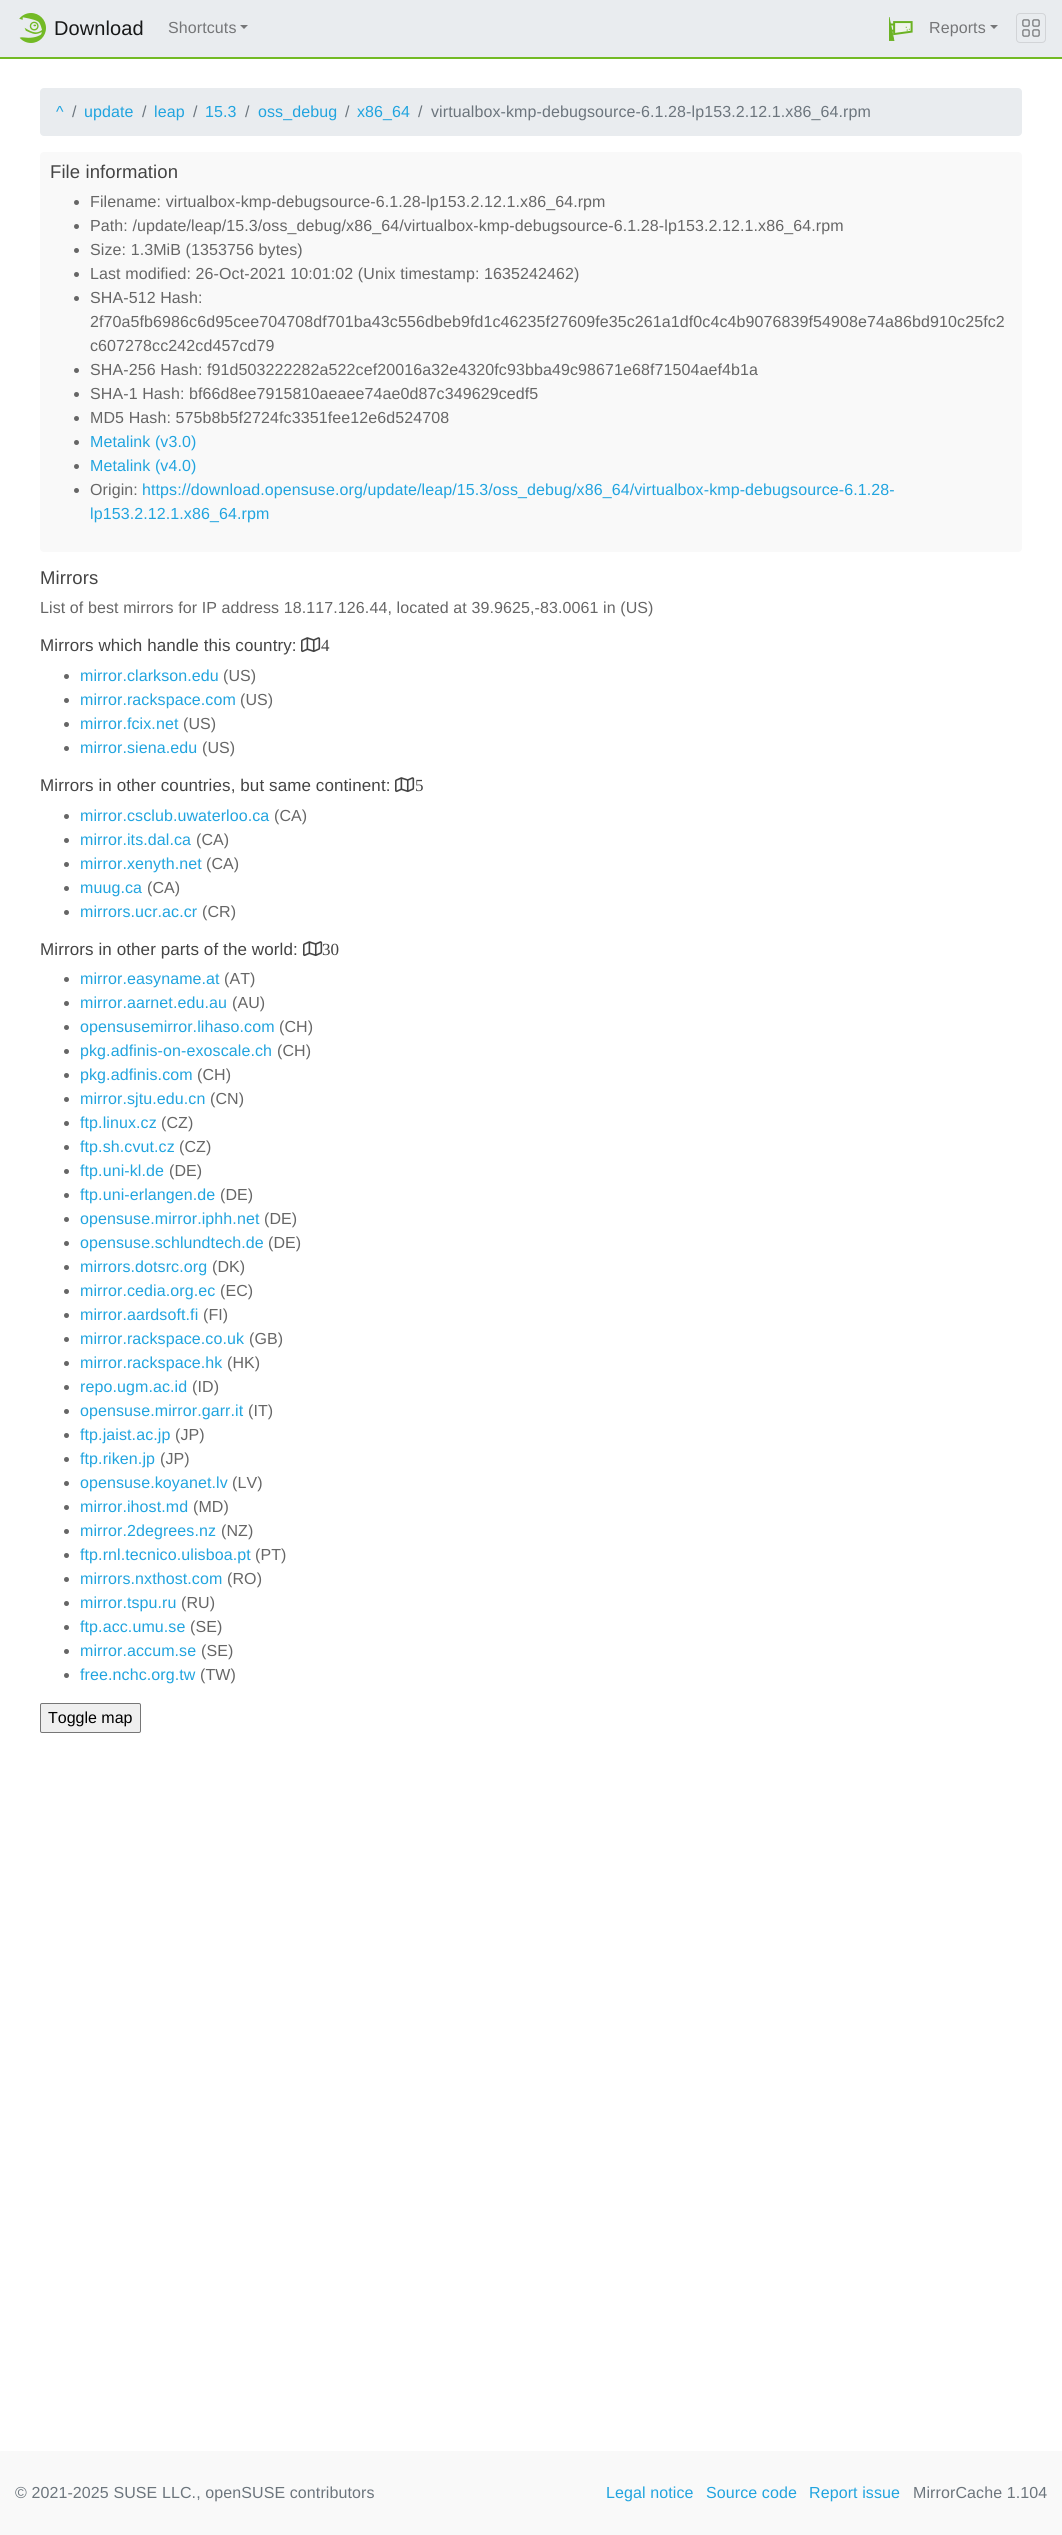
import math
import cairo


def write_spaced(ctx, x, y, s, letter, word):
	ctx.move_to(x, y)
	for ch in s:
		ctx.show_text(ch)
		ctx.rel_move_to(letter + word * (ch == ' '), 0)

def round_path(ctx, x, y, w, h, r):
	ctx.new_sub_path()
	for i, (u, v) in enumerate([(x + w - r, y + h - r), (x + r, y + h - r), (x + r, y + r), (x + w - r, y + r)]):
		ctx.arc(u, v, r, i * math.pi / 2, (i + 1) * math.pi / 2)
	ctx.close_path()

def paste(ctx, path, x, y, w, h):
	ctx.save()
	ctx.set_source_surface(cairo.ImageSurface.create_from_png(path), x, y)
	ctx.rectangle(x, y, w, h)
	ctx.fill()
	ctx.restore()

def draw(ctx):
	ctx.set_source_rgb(1, 1, 1)
	ctx.paint()
	ctx.set_source_rgb(0.914, 0.925, 0.937)
	ctx.rectangle(0, 0, 1062, 57)
	ctx.fill()
	ctx.set_source_rgb(0.451, 0.729, 0.145)
	ctx.rectangle(0, 57, 1062, 2)
	ctx.fill()
	paste(ctx, 'media/1.png', 19, 13, 27, 30)
	ctx.select_font_face('Liberation Sans')
	ctx.set_font_size(20)
	ctx.set_source_rgb(0.09, 0.094, 0.094)
	write_spaced(ctx, 54, 35, 'Download', 0.1, 0)
	ctx.set_font_size(16)
	ctx.set_source_rgb(0.459, 0.463, 0.471)
	write_spaced(ctx, 168, 33, 'Shortcuts', 0.1, 0)
	ctx.new_path()
	ctx.move_to(240, 25)
	ctx.line_to(248, 25)
	ctx.line_to(244, 29)
	ctx.close_path()
	ctx.fill()
	paste(ctx, 'media/2.png', 889, 17, 24, 24)
	write_spaced(ctx, 929, 33, 'Reports', 0.1, 0)
	ctx.new_path()
	ctx.move_to(990, 25)
	ctx.line_to(998, 25)
	ctx.line_to(994, 29)
	ctx.close_path()
	ctx.fill()
	round_path(ctx, 1016.5, 13.5, 29, 29, 3.5)
	ctx.set_source_rgb(0.824, 0.831, 0.843)
	ctx.set_line_width(1)
	ctx.stroke()
	paste(ctx, 'media/3.png', 1022, 19, 18, 18)
	ctx.set_source_rgb(0.914, 0.925, 0.937)
	round_path(ctx, 40, 88, 982, 48, 4)
	ctx.fill()
	ctx.set_source_rgb(0.129, 0.643, 0.875)
	write_spaced(ctx, 56, 117, '^', 0.1, 0)
	ctx.set_source_rgb(0.424, 0.459, 0.49)
	write_spaced(ctx, 72, 117, '/', 0.1, 0)
	ctx.set_source_rgb(0.129, 0.643, 0.875)
	write_spaced(ctx, 84, 117, 'update', 0.1, 0)
	ctx.set_source_rgb(0.424, 0.459, 0.49)
	write_spaced(ctx, 142, 117, '/', 0.1, 0)
	ctx.set_source_rgb(0.129, 0.643, 0.875)
	write_spaced(ctx, 154, 117, 'leap', 0.1, 0)
	ctx.set_source_rgb(0.424, 0.459, 0.49)
	write_spaced(ctx, 193, 117, '/', 0.1, 0)
	ctx.set_source_rgb(0.129, 0.643, 0.875)
	write_spaced(ctx, 205, 117, '15.3', 0.1, 0)
	ctx.set_source_rgb(0.424, 0.459, 0.49)
	write_spaced(ctx, 245, 117, '/', 0.1, 0)
	ctx.set_source_rgb(0.129, 0.643, 0.875)
	write_spaced(ctx, 258, 117, 'oss_debug', 0.1, 0)
	ctx.set_source_rgb(0.424, 0.459, 0.49)
	write_spaced(ctx, 345, 117, '/', 0.1, 0)
	ctx.set_source_rgb(0.129, 0.643, 0.875)
	write_spaced(ctx, 357, 117, 'x86_64', 0.1, 0)
	ctx.set_source_rgb(0.424, 0.459, 0.49)
	write_spaced(ctx, 418, 117, '/', 0.1, 0)
	write_spaced(ctx, 431, 117, 'virtualbox-kmp-debugsource-6.1.28-lp153.2.12.1.x86_64.rpm', 0.1, 0)
	ctx.set_source_rgb(0.973, 0.973, 0.973)
	round_path(ctx, 40, 152, 982, 400, 4)
	ctx.fill()
	ctx.set_font_size(18.5)
	ctx.set_source_rgb(0.267, 0.267, 0.267)
	write_spaced(ctx, 50, 178, 'File information', 0.1, 0)
	ctx.set_source_rgb(0.4, 0.4, 0.4)
	ctx.new_path()
	ctx.arc(76.5, 202.5, 2.5, 0, 2 * math.pi)
	ctx.fill()
	ctx.set_font_size(16)
	write_spaced(ctx, 90, 207, 'Filename: virtualbox-kmp-debugsource-6.1.28-lp153.2.12.1.x86_64.rpm', 0.1, 0)
	ctx.new_path()
	ctx.arc(76.5, 226.5, 2.5, 0, 2 * math.pi)
	ctx.fill()
	write_spaced(ctx, 90, 231, 'Path: /update/leap/15.3/oss_debug/x86_64/virtualbox-kmp-debugsource-6.1.28-lp153.2.12.1.x86_64.rpm', 0.1, 0)
	ctx.new_path()
	ctx.arc(76.5, 250.5, 2.5, 0, 2 * math.pi)
	ctx.fill()
	write_spaced(ctx, 90, 255, 'Size: 1.3MiB (1353756 bytes)', 0.1, 0)
	ctx.new_path()
	ctx.arc(76.5, 274.5, 2.5, 0, 2 * math.pi)
	ctx.fill()
	write_spaced(ctx, 90, 279, 'Last modified: 26-Oct-2021 10:01:02 (Unix timestamp: 1635242462)', 0.1, 0)
	ctx.new_path()
	ctx.arc(76.5, 298.5, 2.5, 0, 2 * math.pi)
	ctx.fill()
	for x, y, s in [
		(90, 303, 'SHA-512 Hash:'),
		(90, 327, '2f70a5fb6986c6d95cee704708df701ba43c556dbeb9fd1c46235f27609fe35c261a1df0c4c4b9076839f54908e74a86bd910c25fc2'),
		(90, 351, 'c607278cc242cd457cd79'),
	]:
		write_spaced(ctx, x, y, s, 0.1, 0)
	ctx.new_path()
	ctx.arc(76.5, 370.5, 2.5, 0, 2 * math.pi)
	ctx.fill()
	write_spaced(ctx, 90, 375, 'SHA-256 Hash: f91d503222282a522cef20016a32e4320fc93bba49c98671e68f71504aef4b1a', 0.1, 0)
	ctx.new_path()
	ctx.arc(76.5, 394.5, 2.5, 0, 2 * math.pi)
	ctx.fill()
	write_spaced(ctx, 90, 399, 'SHA-1 Hash: bf66d8ee7915810aeaee74ae0d87c349629cedf5', 0.1, 0)
	ctx.new_path()
	ctx.arc(76.5, 418.5, 2.5, 0, 2 * math.pi)
	ctx.fill()
	write_spaced(ctx, 90, 423, 'MD5 Hash: 575b8b5f2724fc3351fee12e6d524708', 0.1, 0)
	ctx.new_path()
	ctx.arc(76.5, 442.5, 2.5, 0, 2 * math.pi)
	ctx.fill()
	ctx.set_source_rgb(0.129, 0.643, 0.875)
	write_spaced(ctx, 90, 447, 'Metalink (v3.0)', 0.1, 0)
	ctx.set_source_rgb(0.4, 0.4, 0.4)
	ctx.new_path()
	ctx.arc(76.5, 466.5, 2.5, 0, 2 * math.pi)
	ctx.fill()
	ctx.set_source_rgb(0.129, 0.643, 0.875)
	write_spaced(ctx, 90, 471, 'Metalink (v4.0)', 0.1, 0)
	ctx.set_source_rgb(0.4, 0.4, 0.4)
	ctx.new_path()
	ctx.arc(76.5, 490.5, 2.5, 0, 2 * math.pi)
	ctx.fill()
	write_spaced(ctx, 90, 495, 'Origin:', 0.1, 0)
	ctx.set_source_rgb(0.129, 0.643, 0.875)
	write_spaced(ctx, 142, 495, 'https://download.opensuse.org/update/leap/15.3/oss_debug/x86_64/virtualbox-kmp-debugsource-6.1.28-', 0.1, 0)
	write_spaced(ctx, 90, 519, 'lp153.2.12.1.x86_64.rpm', 0.1, 0)
	ctx.set_font_size(18.5)
	ctx.set_source_rgb(0.267, 0.267, 0.267)
	write_spaced(ctx, 40, 584, 'Mirrors', 0.1, 0)
	ctx.set_font_size(16)
	ctx.set_source_rgb(0.4, 0.4, 0.4)
	write_spaced(ctx, 40, 613, 'List of best mirrors for IP address 18.117.126.44, located at 39.9625,-83.0061 in (US)', 0.1, 0)
	ctx.set_font_size(17)
	ctx.set_source_rgb(0.267, 0.267, 0.267)
	write_spaced(ctx, 40, 651, 'Mirrors which handle this country:', 0.1, 0)
	paste(ctx, 'media/4.png', 301, 637, 20, 16)
	ctx.select_font_face('Liberation Serif')
	write_spaced(ctx, 321, 651, '4', 0.1, 0)
	ctx.set_source_rgb(0.4, 0.4, 0.4)
	ctx.new_path()
	ctx.arc(66.5, 676.5, 2.5, 0, 2 * math.pi)
	ctx.fill()
	ctx.select_font_face('Liberation Sans')
	ctx.set_font_size(16)
	ctx.set_source_rgb(0.129, 0.643, 0.875)
	write_spaced(ctx, 80, 681, 'mirror.clarkson.edu', 0.1, 0)
	ctx.set_source_rgb(0.4, 0.4, 0.4)
	write_spaced(ctx, 223, 681, '(US)', 0.1, 0)
	ctx.new_path()
	ctx.arc(66.5, 700.5, 2.5, 0, 2 * math.pi)
	ctx.fill()
	ctx.set_source_rgb(0.129, 0.643, 0.875)
	write_spaced(ctx, 80, 705, 'mirror.rackspace.com', 0.1, 0)
	ctx.set_source_rgb(0.4, 0.4, 0.4)
	write_spaced(ctx, 240, 705, '(US)', 0.1, 0)
	ctx.new_path()
	ctx.arc(66.5, 724.5, 2.5, 0, 2 * math.pi)
	ctx.fill()
	ctx.set_source_rgb(0.129, 0.643, 0.875)
	write_spaced(ctx, 80, 729, 'mirror.fcix.net', 0.1, 0)
	ctx.set_source_rgb(0.4, 0.4, 0.4)
	write_spaced(ctx, 183, 729, '(US)', 0.1, 0)
	ctx.new_path()
	ctx.arc(66.5, 748.5, 2.5, 0, 2 * math.pi)
	ctx.fill()
	ctx.set_source_rgb(0.129, 0.643, 0.875)
	write_spaced(ctx, 80, 753, 'mirror.siena.edu', 0.1, 0)
	ctx.set_source_rgb(0.4, 0.4, 0.4)
	write_spaced(ctx, 202, 753, '(US)', 0.1, 0)
	ctx.set_font_size(17)
	ctx.set_source_rgb(0.267, 0.267, 0.267)
	write_spaced(ctx, 40, 791, 'Mirrors in other countries, but same continent:', 0.1, 0)
	paste(ctx, 'media/4.png', 395, 777, 20, 16)
	ctx.select_font_face('Liberation Serif')
	write_spaced(ctx, 415, 791, '5', 0.1, 0)
	ctx.set_source_rgb(0.4, 0.4, 0.4)
	ctx.new_path()
	ctx.arc(66.5, 816.5, 2.5, 0, 2 * math.pi)
	ctx.fill()
	ctx.select_font_face('Liberation Sans')
	ctx.set_font_size(16)
	ctx.set_source_rgb(0.129, 0.643, 0.875)
	write_spaced(ctx, 80, 821, 'mirror.csclub.uwaterloo.ca', 0.1, 0)
	ctx.set_source_rgb(0.4, 0.4, 0.4)
	write_spaced(ctx, 274, 821, '(CA)', 0.1, 0)
	ctx.new_path()
	ctx.arc(66.5, 840.5, 2.5, 0, 2 * math.pi)
	ctx.fill()
	ctx.set_source_rgb(0.129, 0.643, 0.875)
	write_spaced(ctx, 80, 845, 'mirror.its.dal.ca', 0.1, 0)
	ctx.set_source_rgb(0.4, 0.4, 0.4)
	write_spaced(ctx, 196, 845, '(CA)', 0.1, 0)
	ctx.new_path()
	ctx.arc(66.5, 864.5, 2.5, 0, 2 * math.pi)
	ctx.fill()
	ctx.set_source_rgb(0.129, 0.643, 0.875)
	write_spaced(ctx, 80, 869, 'mirror.xenyth.net', 0.1, 0)
	ctx.set_source_rgb(0.4, 0.4, 0.4)
	write_spaced(ctx, 206, 869, '(CA)', 0.1, 0)
	ctx.new_path()
	ctx.arc(66.5, 888.5, 2.5, 0, 2 * math.pi)
	ctx.fill()
	ctx.set_source_rgb(0.129, 0.643, 0.875)
	write_spaced(ctx, 80, 893, 'muug.ca', 0.1, 0)
	ctx.set_source_rgb(0.4, 0.4, 0.4)
	write_spaced(ctx, 147, 893, '(CA)', 0.1, 0)
	ctx.new_path()
	ctx.arc(66.5, 912.5, 2.5, 0, 2 * math.pi)
	ctx.fill()
	ctx.set_source_rgb(0.129, 0.643, 0.875)
	write_spaced(ctx, 80, 917, 'mirrors.ucr.ac.cr', 0.1, 0)
	ctx.set_source_rgb(0.4, 0.4, 0.4)
	write_spaced(ctx, 202, 917, '(CR)', 0.1, 0)
	ctx.set_font_size(17)
	ctx.set_source_rgb(0.267, 0.267, 0.267)
	write_spaced(ctx, 40, 955, 'Mirrors in other parts of the world:', 0.1, 0)
	paste(ctx, 'media/4.png', 303, 941, 20, 16)
	ctx.select_font_face('Liberation Serif')
	write_spaced(ctx, 322, 955, '30', 0.1, 0)
	ctx.set_source_rgb(0.4, 0.4, 0.4)
	ctx.new_path()
	ctx.arc(66.5, 979.5, 2.5, 0, 2 * math.pi)
	ctx.fill()
	ctx.select_font_face('Liberation Sans')
	ctx.set_font_size(16)
	ctx.set_source_rgb(0.129, 0.643, 0.875)
	write_spaced(ctx, 80, 984, 'mirror.easyname.at', 0.1, 0)
	ctx.set_source_rgb(0.4, 0.4, 0.4)
	write_spaced(ctx, 224, 984, '(AT)', 0.1, 0)
	ctx.new_path()
	ctx.arc(66.5, 1003.5, 2.5, 0, 2 * math.pi)
	ctx.fill()
	ctx.set_source_rgb(0.129, 0.643, 0.875)
	write_spaced(ctx, 80, 1008, 'mirror.aarnet.edu.au', 0.1, 0)
	ctx.set_source_rgb(0.4, 0.4, 0.4)
	write_spaced(ctx, 232, 1008, '(AU)', 0.1, 0)
	ctx.new_path()
	ctx.arc(66.5, 1027.5, 2.5, 0, 2 * math.pi)
	ctx.fill()
	ctx.set_source_rgb(0.129, 0.643, 0.875)
	write_spaced(ctx, 80, 1032, 'opensusemirror.lihaso.com', 0.1, 0)
	ctx.set_source_rgb(0.4, 0.4, 0.4)
	write_spaced(ctx, 279, 1032, '(CH)', 0.1, 0)
	ctx.new_path()
	ctx.arc(66.5, 1051.5, 2.5, 0, 2 * math.pi)
	ctx.fill()
	ctx.set_source_rgb(0.129, 0.643, 0.875)
	write_spaced(ctx, 80, 1056, 'pkg.adfinis-on-exoscale.ch', 0.1, 0)
	ctx.set_source_rgb(0.4, 0.4, 0.4)
	write_spaced(ctx, 277, 1056, '(CH)', 0.1, 0)
	ctx.new_path()
	ctx.arc(66.5, 1075.5, 2.5, 0, 2 * math.pi)
	ctx.fill()
	ctx.set_source_rgb(0.129, 0.643, 0.875)
	write_spaced(ctx, 80, 1080, 'pkg.adfinis.com', 0.1, 0)
	ctx.set_source_rgb(0.4, 0.4, 0.4)
	write_spaced(ctx, 197, 1080, '(CH)', 0.1, 0)
	ctx.new_path()
	ctx.arc(66.5, 1099.5, 2.5, 0, 2 * math.pi)
	ctx.fill()
	ctx.set_source_rgb(0.129, 0.643, 0.875)
	write_spaced(ctx, 80, 1104, 'mirror.sjtu.edu.cn', 0.1, 0)
	ctx.set_source_rgb(0.4, 0.4, 0.4)
	write_spaced(ctx, 210, 1104, '(CN)', 0.1, 0)
	ctx.new_path()
	ctx.arc(66.5, 1123.5, 2.5, 0, 2 * math.pi)
	ctx.fill()
	ctx.set_source_rgb(0.129, 0.643, 0.875)
	write_spaced(ctx, 80, 1128, 'ftp.linux.cz', 0.1, 0)
	ctx.set_source_rgb(0.4, 0.4, 0.4)
	write_spaced(ctx, 161, 1128, '(CZ)', 0.1, 0)
	ctx.new_path()
	ctx.arc(66.5, 1147.5, 2.5, 0, 2 * math.pi)
	ctx.fill()
	ctx.set_source_rgb(0.129, 0.643, 0.875)
	write_spaced(ctx, 80, 1152, 'ftp.sh.cvut.cz', 0.1, 0)
	ctx.set_source_rgb(0.4, 0.4, 0.4)
	write_spaced(ctx, 179, 1152, '(CZ)', 0.1, 0)
	ctx.new_path()
	ctx.arc(66.5, 1171.5, 2.5, 0, 2 * math.pi)
	ctx.fill()
	ctx.set_source_rgb(0.129, 0.643, 0.875)
	write_spaced(ctx, 80, 1176, 'ftp.uni-kl.de', 0.1, 0)
	ctx.set_source_rgb(0.4, 0.4, 0.4)
	write_spaced(ctx, 169, 1176, '(DE)', 0.1, 0)
	ctx.new_path()
	ctx.arc(66.5, 1195.5, 2.5, 0, 2 * math.pi)
	ctx.fill()
	ctx.set_source_rgb(0.129, 0.643, 0.875)
	write_spaced(ctx, 80, 1200, 'ftp.uni-erlangen.de', 0.1, 0)
	ctx.set_source_rgb(0.4, 0.4, 0.4)
	write_spaced(ctx, 220, 1200, '(DE)', 0.1, 0)
	ctx.new_path()
	ctx.arc(66.5, 1219.5, 2.5, 0, 2 * math.pi)
	ctx.fill()
	ctx.set_source_rgb(0.129, 0.643, 0.875)
	write_spaced(ctx, 80, 1224, 'opensuse.mirror.iphh.net', 0.1, 0)
	ctx.set_source_rgb(0.4, 0.4, 0.4)
	write_spaced(ctx, 264, 1224, '(DE)', 0.1, 0)
	ctx.new_path()
	ctx.arc(66.5, 1243.5, 2.5, 0, 2 * math.pi)
	ctx.fill()
	ctx.set_source_rgb(0.129, 0.643, 0.875)
	write_spaced(ctx, 80, 1248, 'opensuse.schlundtech.de', 0.1, 0)
	ctx.set_source_rgb(0.4, 0.4, 0.4)
	write_spaced(ctx, 268, 1248, '(DE)', 0.1, 0)
	ctx.new_path()
	ctx.arc(66.5, 1267.5, 2.5, 0, 2 * math.pi)
	ctx.fill()
	ctx.set_source_rgb(0.129, 0.643, 0.875)
	write_spaced(ctx, 80, 1272, 'mirrors.dotsrc.org', 0.1, 0)
	ctx.set_source_rgb(0.4, 0.4, 0.4)
	write_spaced(ctx, 212, 1272, '(DK)', 0.1, 0)
	ctx.new_path()
	ctx.arc(66.5, 1291.5, 2.5, 0, 2 * math.pi)
	ctx.fill()
	ctx.set_source_rgb(0.129, 0.643, 0.875)
	write_spaced(ctx, 80, 1296, 'mirror.cedia.org.ec', 0.1, 0)
	ctx.set_source_rgb(0.4, 0.4, 0.4)
	write_spaced(ctx, 220, 1296, '(EC)', 0.1, 0)
	ctx.new_path()
	ctx.arc(66.5, 1315.5, 2.5, 0, 2 * math.pi)
	ctx.fill()
	ctx.set_source_rgb(0.129, 0.643, 0.875)
	write_spaced(ctx, 80, 1320, 'mirror.aardsoft.fi', 0.1, 0)
	ctx.set_source_rgb(0.4, 0.4, 0.4)
	write_spaced(ctx, 203, 1320, '(FI)', 0.1, 0)
	ctx.new_path()
	ctx.arc(66.5, 1339.5, 2.5, 0, 2 * math.pi)
	ctx.fill()
	ctx.set_source_rgb(0.129, 0.643, 0.875)
	write_spaced(ctx, 80, 1344, 'mirror.rackspace.co.uk', 0.1, 0)
	ctx.set_source_rgb(0.4, 0.4, 0.4)
	write_spaced(ctx, 249, 1344, '(GB)', 0.1, 0)
	ctx.new_path()
	ctx.arc(66.5, 1363.5, 2.5, 0, 2 * math.pi)
	ctx.fill()
	ctx.set_source_rgb(0.129, 0.643, 0.875)
	write_spaced(ctx, 80, 1368, 'mirror.rackspace.hk', 0.1, 0)
	ctx.set_source_rgb(0.4, 0.4, 0.4)
	write_spaced(ctx, 227, 1368, '(HK)', 0.1, 0)
	ctx.new_path()
	ctx.arc(66.5, 1387.5, 2.5, 0, 2 * math.pi)
	ctx.fill()
	ctx.set_source_rgb(0.129, 0.643, 0.875)
	write_spaced(ctx, 80, 1392, 'repo.ugm.ac.id', 0.1, 0)
	ctx.set_source_rgb(0.4, 0.4, 0.4)
	write_spaced(ctx, 192, 1392, '(ID)', 0.1, 0)
	ctx.new_path()
	ctx.arc(66.5, 1411.5, 2.5, 0, 2 * math.pi)
	ctx.fill()
	ctx.set_source_rgb(0.129, 0.643, 0.875)
	write_spaced(ctx, 80, 1416, 'opensuse.mirror.garr.it', 0.1, 0)
	ctx.set_source_rgb(0.4, 0.4, 0.4)
	write_spaced(ctx, 248, 1416, '(IT)', 0.1, 0)
	ctx.new_path()
	ctx.arc(66.5, 1435.5, 2.5, 0, 2 * math.pi)
	ctx.fill()
	ctx.set_source_rgb(0.129, 0.643, 0.875)
	write_spaced(ctx, 80, 1440, 'ftp.jaist.ac.jp', 0.1, 0)
	ctx.set_source_rgb(0.4, 0.4, 0.4)
	write_spaced(ctx, 175, 1440, '(JP)', 0.1, 0)
	ctx.new_path()
	ctx.arc(66.5, 1459.5, 2.5, 0, 2 * math.pi)
	ctx.fill()
	ctx.set_source_rgb(0.129, 0.643, 0.875)
	write_spaced(ctx, 80, 1464, 'ftp.riken.jp', 0.1, 0)
	ctx.set_source_rgb(0.4, 0.4, 0.4)
	write_spaced(ctx, 160, 1464, '(JP)', 0.1, 0)
	ctx.new_path()
	ctx.arc(66.5, 1483.5, 2.5, 0, 2 * math.pi)
	ctx.fill()
	ctx.set_source_rgb(0.129, 0.643, 0.875)
	write_spaced(ctx, 80, 1488, 'opensuse.koyanet.lv', 0.1, 0)
	ctx.set_source_rgb(0.4, 0.4, 0.4)
	write_spaced(ctx, 232, 1488, '(LV)', 0.1, 0)
	ctx.new_path()
	ctx.arc(66.5, 1507.5, 2.5, 0, 2 * math.pi)
	ctx.fill()
	ctx.set_source_rgb(0.129, 0.643, 0.875)
	write_spaced(ctx, 80, 1512, 'mirror.ihost.md', 0.1, 0)
	ctx.set_source_rgb(0.4, 0.4, 0.4)
	write_spaced(ctx, 193, 1512, '(MD)', 0.1, 0)
	ctx.new_path()
	ctx.arc(66.5, 1531.5, 2.5, 0, 2 * math.pi)
	ctx.fill()
	ctx.set_source_rgb(0.129, 0.643, 0.875)
	write_spaced(ctx, 80, 1536, 'mirror.2degrees.nz', 0.1, 0)
	ctx.set_source_rgb(0.4, 0.4, 0.4)
	write_spaced(ctx, 221, 1536, '(NZ)', 0.1, 0)
	ctx.new_path()
	ctx.arc(66.5, 1555.5, 2.5, 0, 2 * math.pi)
	ctx.fill()
	ctx.set_source_rgb(0.129, 0.643, 0.875)
	write_spaced(ctx, 80, 1560, 'ftp.rnl.tecnico.ulisboa.pt', 0.1, 0)
	ctx.set_source_rgb(0.4, 0.4, 0.4)
	write_spaced(ctx, 255, 1560, '(PT)', 0.1, 0)
	ctx.new_path()
	ctx.arc(66.5, 1579.5, 2.5, 0, 2 * math.pi)
	ctx.fill()
	ctx.set_source_rgb(0.129, 0.643, 0.875)
	write_spaced(ctx, 80, 1584, 'mirrors.nxthost.com', 0.1, 0)
	ctx.set_source_rgb(0.4, 0.4, 0.4)
	write_spaced(ctx, 227, 1584, '(RO)', 0.1, 0)
	ctx.new_path()
	ctx.arc(66.5, 1603.5, 2.5, 0, 2 * math.pi)
	ctx.fill()
	ctx.set_source_rgb(0.129, 0.643, 0.875)
	write_spaced(ctx, 80, 1608, 'mirror.tspu.ru', 0.1, 0)
	ctx.set_source_rgb(0.4, 0.4, 0.4)
	write_spaced(ctx, 181, 1608, '(RU)', 0.1, 0)
	ctx.new_path()
	ctx.arc(66.5, 1627.5, 2.5, 0, 2 * math.pi)
	ctx.fill()
	ctx.set_source_rgb(0.129, 0.643, 0.875)
	write_spaced(ctx, 80, 1632, 'ftp.acc.umu.se', 0.1, 0)
	ctx.set_source_rgb(0.4, 0.4, 0.4)
	write_spaced(ctx, 190, 1632, '(SE)', 0.1, 0)
	ctx.new_path()
	ctx.arc(66.5, 1651.5, 2.5, 0, 2 * math.pi)
	ctx.fill()
	ctx.set_source_rgb(0.129, 0.643, 0.875)
	write_spaced(ctx, 80, 1656, 'mirror.accum.se', 0.1, 0)
	ctx.set_source_rgb(0.4, 0.4, 0.4)
	write_spaced(ctx, 201, 1656, '(SE)', 0.1, 0)
	ctx.new_path()
	ctx.arc(66.5, 1675.5, 2.5, 0, 2 * math.pi)
	ctx.fill()
	ctx.set_source_rgb(0.129, 0.643, 0.875)
	write_spaced(ctx, 80, 1680, 'free.nchc.org.tw', 0.1, 0)
	ctx.set_source_rgb(0.4, 0.4, 0.4)
	write_spaced(ctx, 200, 1680, '(TW)', 0.1, 0)
	ctx.set_source_rgb(0.937, 0.937, 0.937)
	round_path(ctx, 40.5, 1703.5, 100, 29, 1.5)
	ctx.fill_preserve()
	ctx.set_source_rgb(0.463, 0.463, 0.463)
	ctx.stroke()
	ctx.set_source_rgb(0, 0, 0)
	ctx.move_to(48, 1723)
	ctx.show_text('Toggle map')
	ctx.set_source_rgb(0.976, 0.976, 0.976)
	ctx.rectangle(0, 2451, 1062, 84)
	ctx.fill()
	ctx.set_source_rgb(0.424, 0.459, 0.49)
	write_spaced(ctx, 15, 2498, '© 2021-2025 SUSE LLC., openSUSE contributors', 0.1, 0)
	ctx.set_source_rgb(0.129, 0.643, 0.875)
	for x, y, s in [
		(606, 2498, 'Legal notice'),
		(706, 2498, 'Source code'),
		(809, 2498, 'Report issue'),
	]:
		write_spaced(ctx, x, y, s, 0.1, 0)
	ctx.set_source_rgb(0.424, 0.459, 0.49)
	write_spaced(ctx, 913, 2498, 'MirrorCache 1.104', 0.1, 0)


surface = cairo.ImageSurface(cairo.FORMAT_RGB24, 1062, 2535)
ctx = cairo.Context(surface)
options = cairo.FontOptions()
options.set_hint_metrics(cairo.HINT_METRICS_OFF)
options.set_hint_style(cairo.HINT_STYLE_NONE)
ctx.set_font_options(options)
ctx.set_miter_limit(4)
draw(ctx)
surface.write_to_png('image.png')
